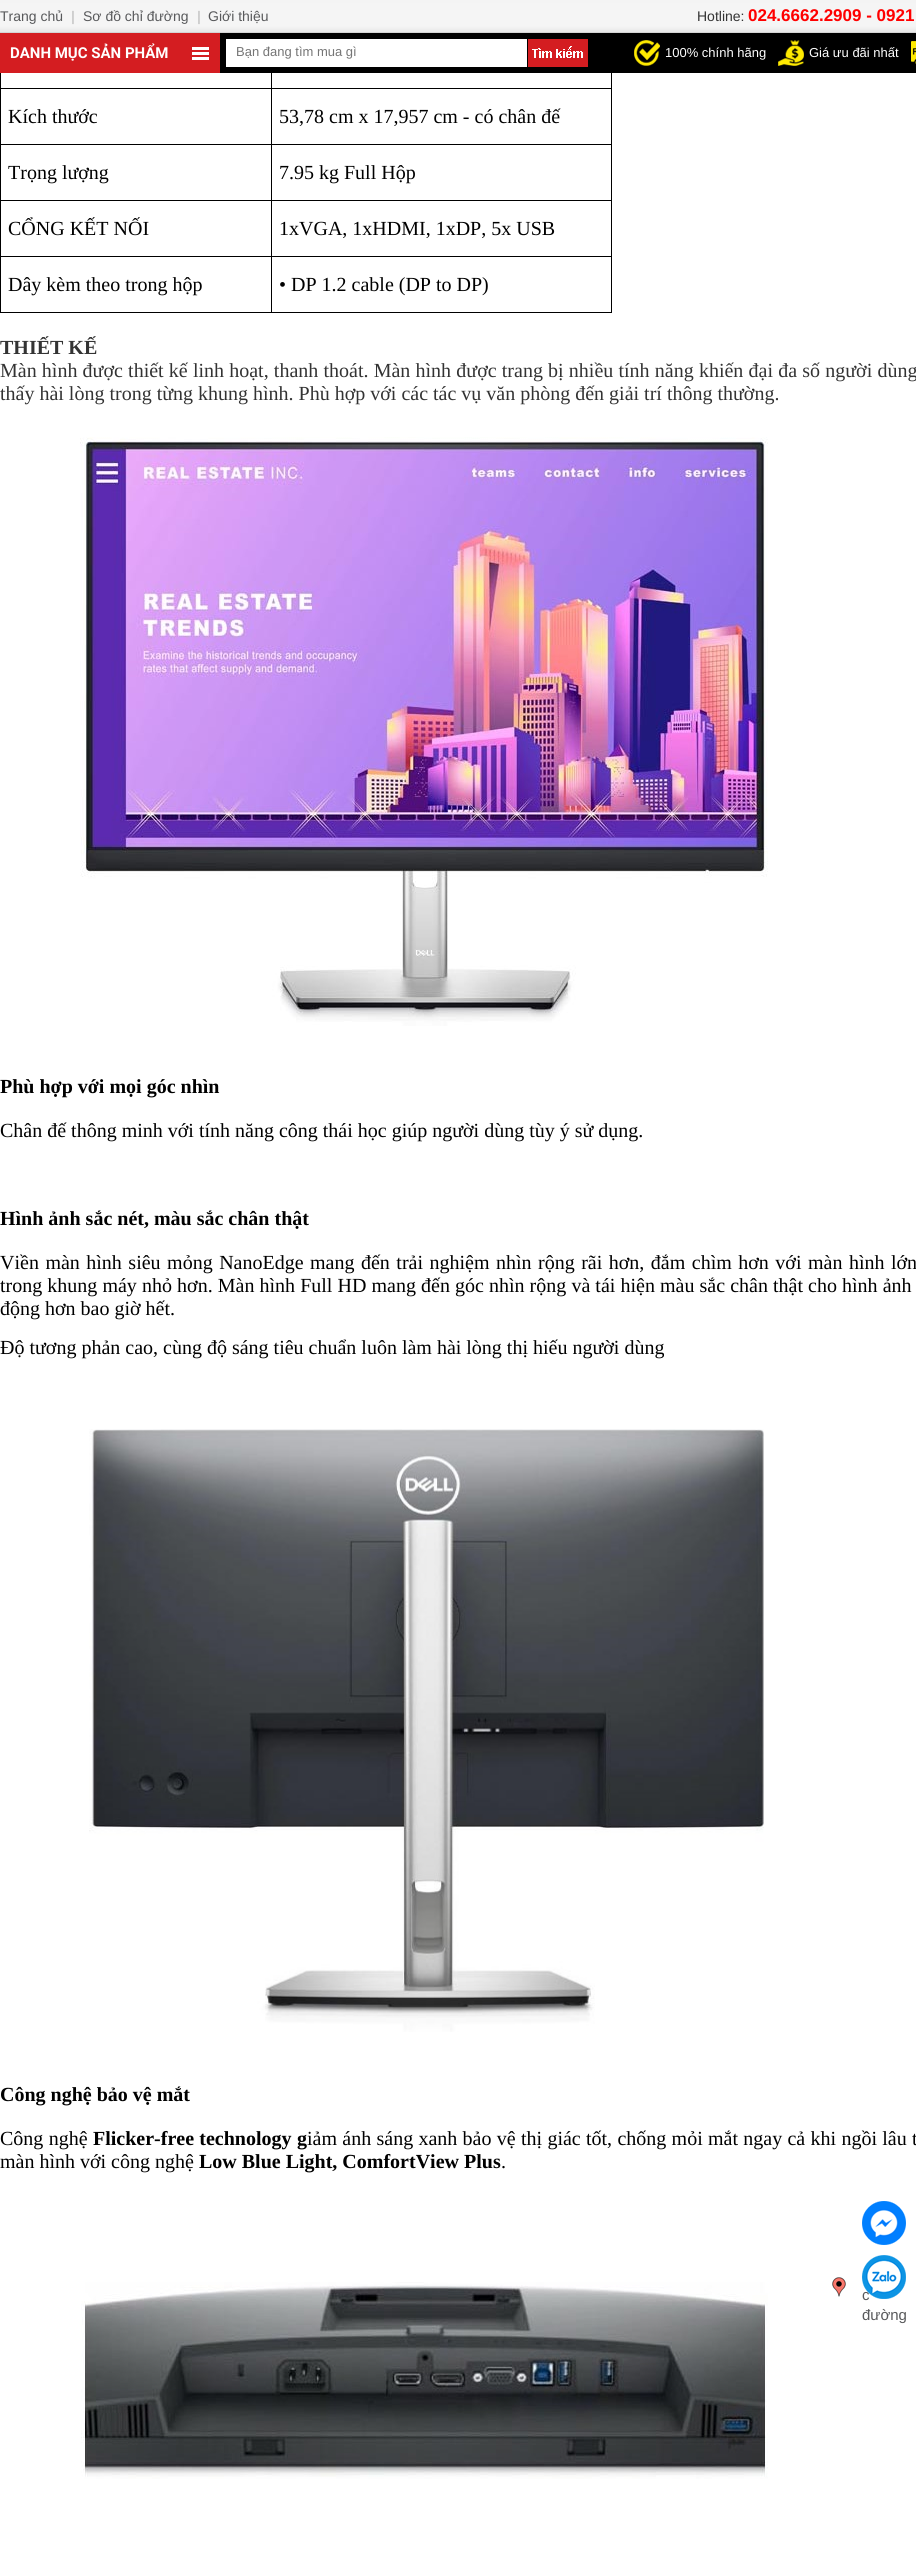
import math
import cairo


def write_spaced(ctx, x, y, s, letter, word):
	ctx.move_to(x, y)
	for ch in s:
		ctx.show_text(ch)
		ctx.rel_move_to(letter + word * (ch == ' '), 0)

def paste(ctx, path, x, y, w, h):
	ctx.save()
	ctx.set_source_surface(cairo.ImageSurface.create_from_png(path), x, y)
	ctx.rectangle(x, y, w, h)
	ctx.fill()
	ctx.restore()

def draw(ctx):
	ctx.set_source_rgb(1, 1, 1)
	ctx.paint()
	paste(ctx, 'media/1.png', 0, 0, 916, 32)
	ctx.set_source_rgb(0.831, 0.831, 0.831)
	ctx.rectangle(0, 32, 916, 1)
	ctx.fill()
	ctx.select_font_face('Liberation Sans')
	ctx.set_font_size(14)
	ctx.set_source_rgb(0.345, 0.349, 0.357)
	ctx.move_to(0, 21)
	ctx.show_text('Trang chủ')
	ctx.select_font_face('Liberation Sans', cairo.FONT_SLANT_NORMAL, cairo.FONT_WEIGHT_BOLD)
	ctx.set_source_rgb(0.8, 0.8, 0.8)
	ctx.move_to(71, 21)
	ctx.show_text('|')
	ctx.select_font_face('Liberation Sans')
	ctx.set_source_rgb(0.345, 0.349, 0.357)
	ctx.move_to(83, 21)
	ctx.show_text('Sơ đồ chỉ đường')
	ctx.select_font_face('Liberation Sans', cairo.FONT_SLANT_NORMAL, cairo.FONT_WEIGHT_BOLD)
	ctx.set_source_rgb(0.8, 0.8, 0.8)
	ctx.move_to(197, 21)
	ctx.show_text('|')
	ctx.select_font_face('Liberation Sans')
	ctx.set_source_rgb(0.345, 0.349, 0.357)
	ctx.move_to(208, 21)
	ctx.show_text('Giới thiệu')
	ctx.set_source_rgb(0.2, 0.2, 0.2)
	ctx.move_to(697, 21)
	ctx.show_text('Hotline:')
	ctx.select_font_face('Liberation Sans', cairo.FONT_SLANT_NORMAL, cairo.FONT_WEIGHT_BOLD)
	ctx.set_font_size(17)
	ctx.set_source_rgb(1, 0, 0)
	ctx.move_to(748, 21)
	ctx.show_text('024.6662.2909 - 0921')
	ctx.set_source_rgb(0, 0, 0)
	ctx.rectangle(220, 33, 696, 40)
	ctx.fill()
	ctx.set_source_rgb(0.831, 0.114, 0.129)
	ctx.rectangle(0, 33, 220, 40)
	ctx.fill()
	paste(ctx, 'media/2.png', 192, 47, 17, 13)
	ctx.select_font_face('Roboto', cairo.FONT_SLANT_NORMAL, cairo.FONT_WEIGHT_BOLD)
	ctx.set_font_size(15)
	ctx.set_source_rgb(1, 1, 1)
	ctx.move_to(10, 58)
	ctx.show_text('DANH MỤC SẢN PHẨM')
	ctx.rectangle(226, 39, 301, 28)
	ctx.fill()
	paste(ctx, 'media/3.png', 527, 39, 61, 28)
	ctx.select_font_face('Liberation Sans')
	ctx.set_font_size(13)
	ctx.set_source_rgb(0.459, 0.459, 0.459)
	ctx.move_to(236, 56)
	ctx.show_text('Bạn đang tìm mua gì')
	paste(ctx, 'media/4.png', 634, 40, 26, 26)
	ctx.set_source_rgb(1, 1, 1)
	ctx.move_to(665, 57)
	ctx.show_text('100% chính hãng')
	paste(ctx, 'media/5.png', 778, 40, 26, 26)
	ctx.move_to(809, 57)
	ctx.show_text('Giá ưu đãi nhất')
	paste(ctx, 'media/6.png', 911, 41, 5, 23)
	ctx.set_source_rgb(0, 0, 0)
	ctx.rectangle(611, 73, 1, 240)
	ctx.rectangle(271, 312, 341, 1)
	ctx.rectangle(271, 256, 1, 57)
	ctx.rectangle(271, 256, 341, 1)
	ctx.rectangle(271, 200, 1, 57)
	ctx.rectangle(271, 200, 341, 1)
	ctx.rectangle(271, 144, 1, 57)
	ctx.rectangle(271, 144, 341, 1)
	ctx.rectangle(271, 88, 1, 57)
	ctx.rectangle(271, 88, 341, 1)
	ctx.rectangle(271, 73, 1, 16)
	ctx.rectangle(0, 312, 272, 1)
	ctx.rectangle(0, 256, 1, 57)
	ctx.rectangle(0, 256, 272, 1)
	ctx.rectangle(0, 200, 1, 57)
	ctx.rectangle(0, 200, 272, 1)
	ctx.rectangle(0, 144, 1, 57)
	ctx.rectangle(0, 144, 272, 1)
	ctx.rectangle(0, 88, 1, 57)
	ctx.rectangle(0, 88, 272, 1)
	ctx.rectangle(0, 73, 1, 16)
	ctx.fill()
	ctx.select_font_face('Liberation Serif')
	ctx.set_font_size(20)
	for x, y, s in [
		(8, 123, 'Kích thước'),
		(279, 123, '53,78 cm x 17,957 cm - có chân đế'),
		(8, 179, 'Trọng lượng'),
		(279, 179, '7.95 kg Full Hộp'),
		(8, 235, 'CỔNG KẾT NỐI'),
		(279, 235, '1xVGA, 1xHDMI, 1xDP, 5x USB'),
		(8, 291, 'Dây kèm theo trong hộp'),
		(279, 291, '• DP 1.2 cable (DP to DP)'),
	]:
		ctx.move_to(x, y)
		ctx.show_text(s)
	ctx.select_font_face('Liberation Serif', cairo.FONT_SLANT_NORMAL, cairo.FONT_WEIGHT_BOLD)
	ctx.set_source_rgb(0.2, 0.2, 0.2)
	ctx.move_to(0, 354)
	ctx.show_text('THIẾT KẾ')
	ctx.select_font_face('Liberation Serif')
	write_spaced(ctx, 0, 377, 'Màn hình được thiết kế linh hoạt, thanh thoát. Màn hình được trang bị nhiều tính năng khiến đại đa số người dùng', 0, 0.2)
	ctx.move_to(0, 400)
	ctx.show_text('thấy hài lòng trong từng khung hình. Phù hợp với các tác vụ văn phòng đến giải trí thông thường.')
	paste(ctx, 'media/7.png', 80, 437, 688, 589)
	ctx.select_font_face('Liberation Serif', cairo.FONT_SLANT_NORMAL, cairo.FONT_WEIGHT_BOLD)
	ctx.set_source_rgb(0, 0, 0)
	ctx.move_to(0, 1093)
	ctx.show_text('Phù hợp với mọi góc nhìn')
	ctx.select_font_face('Liberation Serif')
	ctx.move_to(0, 1137)
	ctx.show_text('Chân đế thông minh với tính năng công thái học giúp người dùng tùy ý sử dụng.')
	ctx.select_font_face('Liberation Serif', cairo.FONT_SLANT_NORMAL, cairo.FONT_WEIGHT_BOLD)
	ctx.move_to(0, 1225)
	ctx.show_text('Hình ảnh sắc nét, màu sắc chân thật')
	ctx.select_font_face('Liberation Serif')
	write_spaced(ctx, 0, 1269, 'Viền màn hình siêu mỏng NanoEdge mang đến trải nghiệm nhìn rộng rãi hơn, đắm chìm hơn với màn hình lớn', 0, 1.5)
	write_spaced(ctx, 0, 1292, 'trong khung máy nhỏ hơn. Màn hình Full HD mang đến góc nhìn rộng và tái hiện màu sắc chân thật cho hình ảnh', 0, 0.1)
	ctx.move_to(0, 1315)
	ctx.show_text('động hơn bao giờ hết.')
	ctx.move_to(0, 1354)
	ctx.show_text('Độ tương phản cao, cùng độ sáng tiêu chuẩn luôn làm hài lòng thị hiếu người dùng')
	paste(ctx, 'media/8.png', 89, 1429, 675, 603)
	ctx.select_font_face('Liberation Serif', cairo.FONT_SLANT_NORMAL, cairo.FONT_WEIGHT_BOLD)
	ctx.move_to(0, 2101)
	ctx.show_text('Công nghệ bảo vệ mắt')
	ctx.select_font_face('Liberation Serif')
	write_spaced(ctx, 0, 2145, 'Công nghệ', 0, 0.3)
	ctx.select_font_face('Liberation Serif', cairo.FONT_SLANT_NORMAL, cairo.FONT_WEIGHT_BOLD)
	write_spaced(ctx, 93, 2145, 'Flicker-free technology', 0, 0.3)
	ctx.move_to(297, 2145)
	ctx.show_text('g')
	ctx.select_font_face('Liberation Serif')
	write_spaced(ctx, 307, 2145, 'iảm ánh sáng xanh bảo vệ thị giác tốt, chống mỏi mắt ngay cả khi ngồi lâu t', 0, 0.3)
	ctx.move_to(0, 2168)
	ctx.show_text('màn hình với công nghệ')
	ctx.select_font_face('Liberation Serif', cairo.FONT_SLANT_NORMAL, cairo.FONT_WEIGHT_BOLD)
	ctx.move_to(199, 2168)
	ctx.show_text('Low Blue Light, ComfortView Plus')
	ctx.select_font_face('Liberation Serif')
	ctx.move_to(501, 2168)
	ctx.show_text('.')
	paste(ctx, 'media/9.png', 81, 2282, 687, 197)
	paste(ctx, 'media/10.png', 832, 2277, 14, 20)
	ctx.select_font_face('Liberation Sans')
	ctx.set_font_size(15)
	ctx.set_source_rgb(0.345, 0.349, 0.357)
	ctx.move_to(862, 2300)
	ctx.show_text('c')
	ctx.move_to(862, 2320)
	ctx.show_text('đường')
	paste(ctx, 'media/11.png', 862, 2201, 44, 44)
	paste(ctx, 'media/12.png', 862, 2255, 44, 44)


surface = cairo.ImageSurface(cairo.FORMAT_RGB24, 916, 2559)
ctx = cairo.Context(surface)
options = cairo.FontOptions()
options.set_hint_metrics(cairo.HINT_METRICS_OFF)
options.set_hint_style(cairo.HINT_STYLE_NONE)
ctx.set_font_options(options)
ctx.set_miter_limit(4)
draw(ctx)
surface.write_to_png('image.png')
